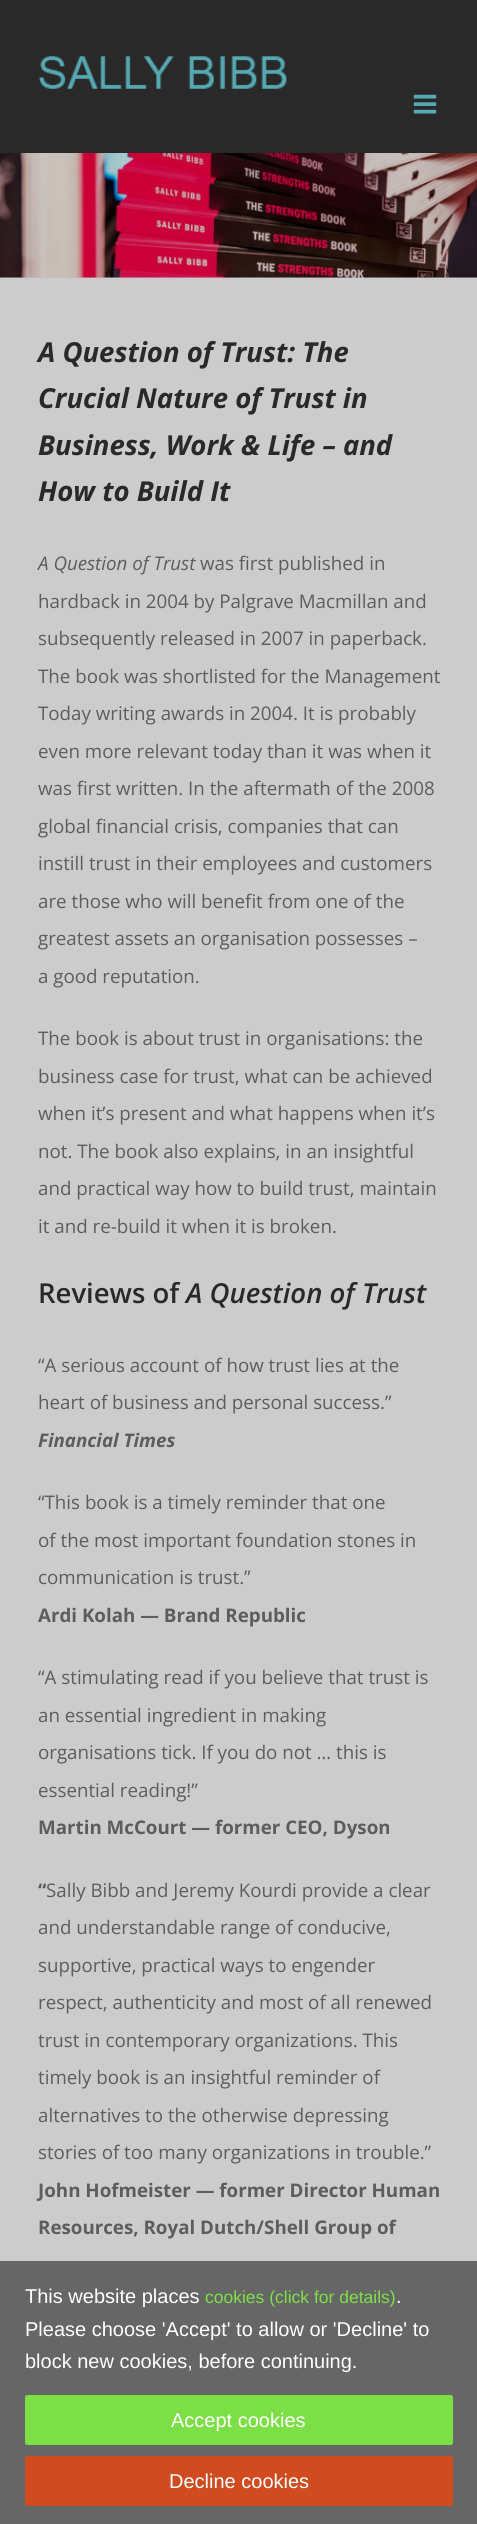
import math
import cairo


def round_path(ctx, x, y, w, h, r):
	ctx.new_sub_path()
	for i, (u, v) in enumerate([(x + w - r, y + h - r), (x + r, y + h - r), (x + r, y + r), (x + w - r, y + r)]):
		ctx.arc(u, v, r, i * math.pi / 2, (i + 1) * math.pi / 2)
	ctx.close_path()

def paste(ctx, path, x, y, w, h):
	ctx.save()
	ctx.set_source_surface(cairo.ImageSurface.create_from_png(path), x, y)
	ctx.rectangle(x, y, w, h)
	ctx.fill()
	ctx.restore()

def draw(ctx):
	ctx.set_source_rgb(0.8, 0.8, 0.8)
	ctx.paint()
	ctx.set_source_rgb(0.161, 0.161, 0.161)
	ctx.rectangle(0, 0, 477, 153)
	ctx.fill()
	paste(ctx, 'media/1.png', 38, 56, 249, 33)
	paste(ctx, 'media/2.png', 413, 94, 24, 20)
	ctx.set_source_rgb(0.753, 0.753, 0.753)
	ctx.rectangle(0, 277, 477, 1)
	ctx.fill()
	paste(ctx, 'media/3.png', 0, 153, 477, 125)
	ctx.select_font_face('Open Sans', cairo.FONT_SLANT_ITALIC, cairo.FONT_WEIGHT_BOLD)
	ctx.set_font_size(27.5)
	ctx.set_source_rgb(0.161, 0.161, 0.161)
	for x, y, s in [
		(38, 362, 'A Question of Trust: The'),
		(38, 408, 'Crucial Nature of Trust in'),
		(38, 455, 'Business, Work & Life – and'),
		(38, 501, 'How to Build It'),
	]:
		ctx.move_to(x, y)
		ctx.show_text(s)
	ctx.select_font_face('Open Sans', cairo.FONT_SLANT_ITALIC)
	ctx.set_font_size(18.75)
	ctx.set_source_rgb(0.365, 0.365, 0.365)
	ctx.move_to(38, 570)
	ctx.show_text('A Question of Trust')
	ctx.select_font_face('Open Sans')
	for x, y, s in [
		(200, 570, 'was first published in'),
		(38, 608, 'hardback in 2004 by Palgrave Macmillan and'),
		(38, 645, 'subsequently released in 2007 in paperback.'),
		(38, 683, 'The book was shortlisted for the Management'),
		(38, 720, 'Today writing awards in 2004. It is probably'),
		(38, 758, 'even more relevant today than it was when it'),
		(38, 795, 'was first written. In the aftermath of the 2008'),
		(38, 833, 'global financial crisis, companies that can'),
		(38, 870, 'instill trust in their employees and customers'),
		(38, 908, 'are those who will benefit from one of the'),
		(38, 945, 'greatest assets an organisation possesses –'),
		(38, 983, 'a good reputation.'),
		(38, 1045, 'The book is about trust in organisations: the'),
		(38, 1083, 'business case for trust, what can be achieved'),
		(38, 1120, 'when it’s present and what happens when it’s'),
		(38, 1158, 'not. The book also explains, in an insightful'),
		(38, 1195, 'and practical way how to build trust, maintain'),
		(38, 1233, 'it and re-build it when it is broken.'),
	]:
		ctx.move_to(x, y)
		ctx.show_text(s)
	ctx.select_font_face('Open Sans SemiBold')
	ctx.set_font_size(27.5)
	ctx.set_source_rgb(0.161, 0.161, 0.161)
	ctx.move_to(38, 1303)
	ctx.show_text('Reviews of')
	ctx.select_font_face('Open Sans SemiBold', cairo.FONT_SLANT_ITALIC)
	ctx.move_to(186, 1303)
	ctx.show_text('A Question of Trust')
	ctx.select_font_face('Open Sans')
	ctx.set_font_size(18.75)
	ctx.set_source_rgb(0.365, 0.365, 0.365)
	ctx.move_to(38, 1372)
	ctx.show_text('“A serious account of how trust lies at the')
	ctx.move_to(38, 1409)
	ctx.show_text('heart of business and personal success.”')
	ctx.select_font_face('Open Sans', cairo.FONT_SLANT_ITALIC, cairo.FONT_WEIGHT_BOLD)
	ctx.move_to(38, 1447)
	ctx.show_text('Financial Times')
	ctx.select_font_face('Open Sans')
	for x, y, s in [
		(38, 1509, '“This book is a timely reminder that one'),
		(38, 1547, 'of the most important foundation stones in'),
		(38, 1584, 'communication is trust.”'),
	]:
		ctx.move_to(x, y)
		ctx.show_text(s)
	ctx.select_font_face('Open Sans', cairo.FONT_SLANT_NORMAL, cairo.FONT_WEIGHT_BOLD)
	ctx.move_to(38, 1622)
	ctx.show_text('Ardi Kolah — Brand Republic')
	ctx.select_font_face('Open Sans')
	for x, y, s in [
		(38, 1684, '“A stimulating read if you believe that trust is'),
		(38, 1722, 'an essential ingredient in making'),
		(38, 1759, 'organisations tick. If you do not … this is'),
		(38, 1797, 'essential reading!”'),
	]:
		ctx.move_to(x, y)
		ctx.show_text(s)
	ctx.select_font_face('Open Sans', cairo.FONT_SLANT_NORMAL, cairo.FONT_WEIGHT_BOLD)
	ctx.move_to(38, 1834)
	ctx.show_text('Martin McCourt — former CEO, Dyson')
	ctx.move_to(38, 1897)
	ctx.show_text('“')
	ctx.select_font_face('Open Sans')
	for x, y, s in [
		(46, 1897, 'Sally Bibb and Jeremy Kourdi provide a clear'),
		(38, 1934, 'and understandable range of conducive,'),
		(38, 1972, 'supportive, practical ways to engender'),
		(38, 2009, 'respect, authenticity and most of all renewed'),
		(38, 2047, 'trust in contemporary organizations. This'),
		(38, 2084, 'timely book is an insightful reminder of'),
		(38, 2122, 'alternatives to the otherwise depressing'),
		(38, 2159, 'stories of too many organizations in trouble.”'),
	]:
		ctx.move_to(x, y)
		ctx.show_text(s)
	ctx.select_font_face('Open Sans', cairo.FONT_SLANT_NORMAL, cairo.FONT_WEIGHT_BOLD)
	ctx.move_to(38, 2197)
	ctx.show_text('John Hofmeister — former Director Human')
	ctx.move_to(38, 2234)
	ctx.show_text('Resources, Royal Dutch/Shell Group of')
	ctx.set_source_rgba(0.267, 0.267, 0.267, 0.75)
	ctx.rectangle(0, 2261, 477, 263)
	ctx.fill()
	ctx.select_font_face('Liberation Sans')
	ctx.set_font_size(20)
	ctx.set_source_rgb(1, 1, 1)
	ctx.move_to(25, 2303)
	ctx.show_text('This website places')
	ctx.set_font_size(17.5)
	ctx.set_source_rgb(0.49, 0.878, 0.278)
	ctx.move_to(205, 2303)
	ctx.show_text('cookies (click for details)')
	ctx.set_font_size(20)
	ctx.set_source_rgb(1, 1, 1)
	for x, y, s in [
		(396, 2303, '.'),
		(25, 2336, 'Please choose \'Accept\' to allow or \'Decline\' to'),
		(25, 2368, 'block new cookies, before continuing.'),
	]:
		ctx.move_to(x, y)
		ctx.show_text(s)
	ctx.set_source_rgb(0.486, 0.875, 0.275)
	round_path(ctx, 25, 2395, 428, 50, 2.5)
	ctx.fill()
	ctx.set_source_rgb(1, 1, 1)
	ctx.move_to(171, 2427)
	ctx.show_text('Accept cookies')
	ctx.set_source_rgb(0.816, 0.298, 0.125)
	round_path(ctx, 25, 2456, 428, 50, 2.5)
	ctx.fill()
	ctx.set_source_rgb(1, 1, 1)
	ctx.move_to(169, 2488)
	ctx.show_text('Decline cookies')


surface = cairo.ImageSurface(cairo.FORMAT_RGB24, 477, 2524)
ctx = cairo.Context(surface)
options = cairo.FontOptions()
options.set_hint_metrics(cairo.HINT_METRICS_OFF)
options.set_hint_style(cairo.HINT_STYLE_NONE)
ctx.set_font_options(options)
ctx.set_miter_limit(4)
draw(ctx)
surface.write_to_png('image.png')
